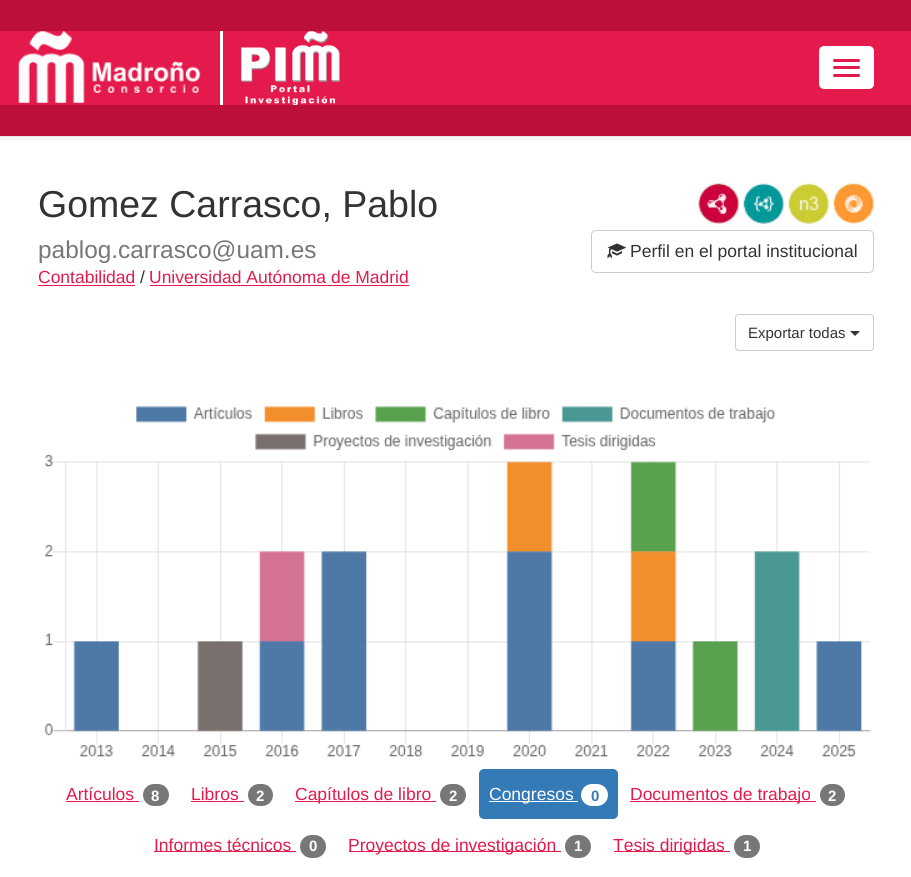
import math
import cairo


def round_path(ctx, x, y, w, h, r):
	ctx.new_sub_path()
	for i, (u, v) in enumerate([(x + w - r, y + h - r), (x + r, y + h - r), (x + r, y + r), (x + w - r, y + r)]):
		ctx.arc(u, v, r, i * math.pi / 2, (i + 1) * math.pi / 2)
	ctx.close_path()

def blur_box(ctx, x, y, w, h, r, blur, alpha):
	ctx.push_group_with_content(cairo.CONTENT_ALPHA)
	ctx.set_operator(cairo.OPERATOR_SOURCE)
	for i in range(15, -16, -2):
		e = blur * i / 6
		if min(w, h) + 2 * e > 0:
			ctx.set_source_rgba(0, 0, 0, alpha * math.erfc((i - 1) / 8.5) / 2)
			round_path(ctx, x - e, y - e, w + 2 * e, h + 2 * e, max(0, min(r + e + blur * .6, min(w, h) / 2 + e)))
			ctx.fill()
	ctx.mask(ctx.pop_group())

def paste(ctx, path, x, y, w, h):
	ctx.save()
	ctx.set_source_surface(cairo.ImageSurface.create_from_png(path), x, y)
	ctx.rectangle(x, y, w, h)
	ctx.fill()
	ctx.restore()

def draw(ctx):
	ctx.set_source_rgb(1, 1, 1)
	ctx.paint()
	ctx.set_source_rgb(0, 0, 0)
	blur_box(ctx, 0, 1, 911, 138, 0, 3, 0.07)
	ctx.set_source_rgb(0.973, 0.973, 0.973)
	ctx.rectangle(0, 137, 911, 1)
	ctx.fill()
	ctx.set_source_rgb(0.906, 0.906, 0.906)
	ctx.rectangle(0, 136, 911, 1)
	ctx.fill()
	ctx.set_source_rgb(0.898, 0.102, 0.298)
	ctx.rectangle(0, 31, 911, 74)
	ctx.fill()
	ctx.set_source_rgb(0.737, 0.059, 0.227)
	ctx.rectangle(0, 0, 911, 31)
	ctx.rectangle(0, 105, 911, 31)
	ctx.fill()
	ctx.set_source_rgb(1, 1, 1)
	ctx.rectangle(220, 31, 3, 74)
	ctx.fill()
	paste(ctx, 'media/1.png', 18, 31, 183, 73)
	paste(ctx, 'media/2.png', 241, 31, 99, 74)
	round_path(ctx, 819, 46, 55, 43, 5)
	ctx.fill()
	ctx.set_source_rgb(0.898, 0.102, 0.298)
	round_path(ctx, 833, 59, 27, 3, 1.5)
	ctx.fill()
	round_path(ctx, 833, 66, 27, 3, 1.5)
	ctx.fill()
	round_path(ctx, 833, 74, 27, 3, 1.5)
	ctx.fill()
	ctx.select_font_face('Liberation Sans')
	ctx.set_font_size(37.5)
	ctx.set_source_rgb(0.2, 0.2, 0.2)
	ctx.move_to(38, 217)
	ctx.show_text('Gomez Carrasco, Pablo')
	ctx.set_font_size(24.4)
	ctx.set_source_rgb(0.467, 0.467, 0.467)
	ctx.move_to(38, 258)
	ctx.show_text('pablog.carrasco@uam.es')
	paste(ctx, 'media/3.png', 698, 183, 41, 41)
	paste(ctx, 'media/4.png', 743, 183, 41, 41)
	paste(ctx, 'media/5.png', 788, 183, 41, 41)
	paste(ctx, 'media/6.png', 833, 183, 41, 41)
	round_path(ctx, 591.5, 230.5, 282, 42, 4.5)
	ctx.set_source_rgb(0.8, 0.8, 0.8)
	ctx.set_line_width(1)
	ctx.stroke()
	paste(ctx, 'media/7.png', 607, 243, 20, 16)
	ctx.set_font_size(17.5)
	ctx.set_source_rgb(0.2, 0.2, 0.2)
	ctx.move_to(630, 257)
	ctx.show_text('Perfil en el portal institucional')
	ctx.set_source_rgb(0.898, 0.102, 0.298)
	ctx.move_to(38, 283)
	ctx.show_text('Contabilidad')
	ctx.rectangle(38, 285, 97, 1)
	ctx.fill()
	ctx.set_source_rgb(0.2, 0.2, 0.2)
	ctx.move_to(140, 283)
	ctx.show_text('/')
	ctx.set_source_rgb(0.898, 0.102, 0.298)
	ctx.move_to(149, 283)
	ctx.show_text('Universidad Autónoma de Madrid')
	ctx.rectangle(150, 285, 259, 1)
	ctx.fill()
	round_path(ctx, 735.5, 314.5, 138, 36, 3.5)
	ctx.set_source_rgb(0.8, 0.8, 0.8)
	ctx.stroke()
	ctx.set_font_size(15)
	ctx.set_source_rgb(0.2, 0.2, 0.2)
	ctx.move_to(748, 338)
	ctx.show_text('Exportar todas')
	ctx.new_path()
	ctx.move_to(850, 331)
	ctx.line_to(860, 331)
	ctx.line_to(855, 336)
	ctx.close_path()
	ctx.fill()
	paste(ctx, 'media/8.png', 44, 406, 828, 351)
	ctx.set_font_size(17.5)
	ctx.set_source_rgb(0.898, 0.102, 0.298)
	ctx.move_to(66, 800)
	ctx.show_text('Artículos')
	ctx.rectangle(66, 801, 73, 1)
	ctx.fill()
	ctx.set_source_rgb(0.467, 0.467, 0.467)
	round_path(ctx, 143, 784, 26, 22, 11)
	ctx.fill()
	ctx.select_font_face('Liberation Sans', cairo.FONT_SLANT_NORMAL, cairo.FONT_WEIGHT_BOLD)
	ctx.set_font_size(15)
	ctx.set_source_rgb(1, 1, 1)
	ctx.move_to(151, 801)
	ctx.show_text('8')
	ctx.select_font_face('Liberation Sans')
	ctx.set_font_size(17.5)
	ctx.set_source_rgb(0.898, 0.102, 0.298)
	ctx.move_to(191, 800)
	ctx.show_text('Libros')
	ctx.rectangle(191, 801, 53, 1)
	ctx.fill()
	ctx.set_source_rgb(0.467, 0.467, 0.467)
	round_path(ctx, 248, 784, 25, 22, 11)
	ctx.fill()
	ctx.select_font_face('Liberation Sans', cairo.FONT_SLANT_NORMAL, cairo.FONT_WEIGHT_BOLD)
	ctx.set_font_size(15)
	ctx.set_source_rgb(1, 1, 1)
	ctx.move_to(256, 801)
	ctx.show_text('2')
	ctx.set_source_rgb(0.898, 0.102, 0.298)
	ctx.rectangle(295, 801, 141, 1)
	ctx.fill()
	ctx.select_font_face('Liberation Sans')
	ctx.set_font_size(17.5)
	ctx.move_to(295, 800)
	ctx.show_text('Capítulos de libro')
	ctx.set_source_rgb(0.467, 0.467, 0.467)
	round_path(ctx, 440, 784, 26, 22, 11)
	ctx.fill()
	ctx.select_font_face('Liberation Sans', cairo.FONT_SLANT_NORMAL, cairo.FONT_WEIGHT_BOLD)
	ctx.set_font_size(15)
	ctx.set_source_rgb(1, 1, 1)
	ctx.move_to(449, 801)
	ctx.show_text('2')
	ctx.set_source_rgb(0.2, 0.478, 0.718)
	round_path(ctx, 479, 769, 139, 50, 5)
	ctx.fill()
	ctx.set_source_rgb(1, 1, 1)
	ctx.rectangle(489, 801, 89, 1)
	ctx.fill()
	ctx.select_font_face('Liberation Sans')
	ctx.set_font_size(17.5)
	ctx.move_to(489, 800)
	ctx.show_text('Congresos')
	round_path(ctx, 581, 784, 27, 22, 11)
	ctx.fill()
	ctx.select_font_face('Liberation Sans', cairo.FONT_SLANT_NORMAL, cairo.FONT_WEIGHT_BOLD)
	ctx.set_font_size(15)
	ctx.set_source_rgb(0.2, 0.478, 0.718)
	ctx.move_to(591, 801)
	ctx.show_text('0')
	ctx.set_source_rgb(0.898, 0.102, 0.298)
	ctx.rectangle(630, 801, 186, 1)
	ctx.fill()
	ctx.select_font_face('Liberation Sans')
	ctx.set_font_size(17.5)
	ctx.move_to(630, 800)
	ctx.show_text('Documentos de trabajo')
	ctx.set_source_rgb(0.467, 0.467, 0.467)
	round_path(ctx, 820, 784, 25, 22, 11)
	ctx.fill()
	ctx.select_font_face('Liberation Sans', cairo.FONT_SLANT_NORMAL, cairo.FONT_WEIGHT_BOLD)
	ctx.set_font_size(15)
	ctx.set_source_rgb(1, 1, 1)
	ctx.move_to(828, 801)
	ctx.show_text('2')
	ctx.set_source_rgb(0.898, 0.102, 0.298)
	ctx.rectangle(154, 851, 142, 1)
	ctx.fill()
	ctx.select_font_face('Liberation Sans')
	ctx.set_font_size(17.5)
	ctx.move_to(154, 851)
	ctx.show_text('Informes técnicos')
	ctx.set_source_rgb(0.467, 0.467, 0.467)
	round_path(ctx, 300, 835, 26, 23, 11.5)
	ctx.fill()
	ctx.select_font_face('Liberation Sans', cairo.FONT_SLANT_NORMAL, cairo.FONT_WEIGHT_BOLD)
	ctx.set_font_size(15)
	ctx.set_source_rgb(1, 1, 1)
	ctx.move_to(309, 851)
	ctx.show_text('0')
	ctx.set_source_rgb(0.898, 0.102, 0.298)
	ctx.rectangle(349, 851, 212, 1)
	ctx.fill()
	ctx.select_font_face('Liberation Sans')
	ctx.set_font_size(17.5)
	ctx.move_to(348, 851)
	ctx.show_text('Proyectos de investigación')
	ctx.set_source_rgb(0.467, 0.467, 0.467)
	round_path(ctx, 565, 835, 26, 23, 11.5)
	ctx.fill()
	ctx.select_font_face('Liberation Sans', cairo.FONT_SLANT_NORMAL, cairo.FONT_WEIGHT_BOLD)
	ctx.set_font_size(15)
	ctx.set_source_rgb(1, 1, 1)
	ctx.move_to(574, 851)
	ctx.show_text('1')
	ctx.set_source_rgb(0.898, 0.102, 0.298)
	ctx.rectangle(614, 851, 116, 1)
	ctx.fill()
	ctx.select_font_face('Liberation Sans')
	ctx.set_font_size(17.5)
	ctx.move_to(613, 851)
	ctx.show_text('Tesis dirigidas')
	ctx.set_source_rgb(0.467, 0.467, 0.467)
	round_path(ctx, 734, 835, 26, 23, 11.5)
	ctx.fill()
	ctx.select_font_face('Liberation Sans', cairo.FONT_SLANT_NORMAL, cairo.FONT_WEIGHT_BOLD)
	ctx.set_font_size(15)
	ctx.set_source_rgb(1, 1, 1)
	ctx.move_to(743, 851)
	ctx.show_text('1')


surface = cairo.ImageSurface(cairo.FORMAT_RGB24, 911, 877)
ctx = cairo.Context(surface)
options = cairo.FontOptions()
options.set_hint_metrics(cairo.HINT_METRICS_OFF)
options.set_hint_style(cairo.HINT_STYLE_NONE)
ctx.set_font_options(options)
ctx.set_miter_limit(4)
draw(ctx)
surface.write_to_png('image.png')
